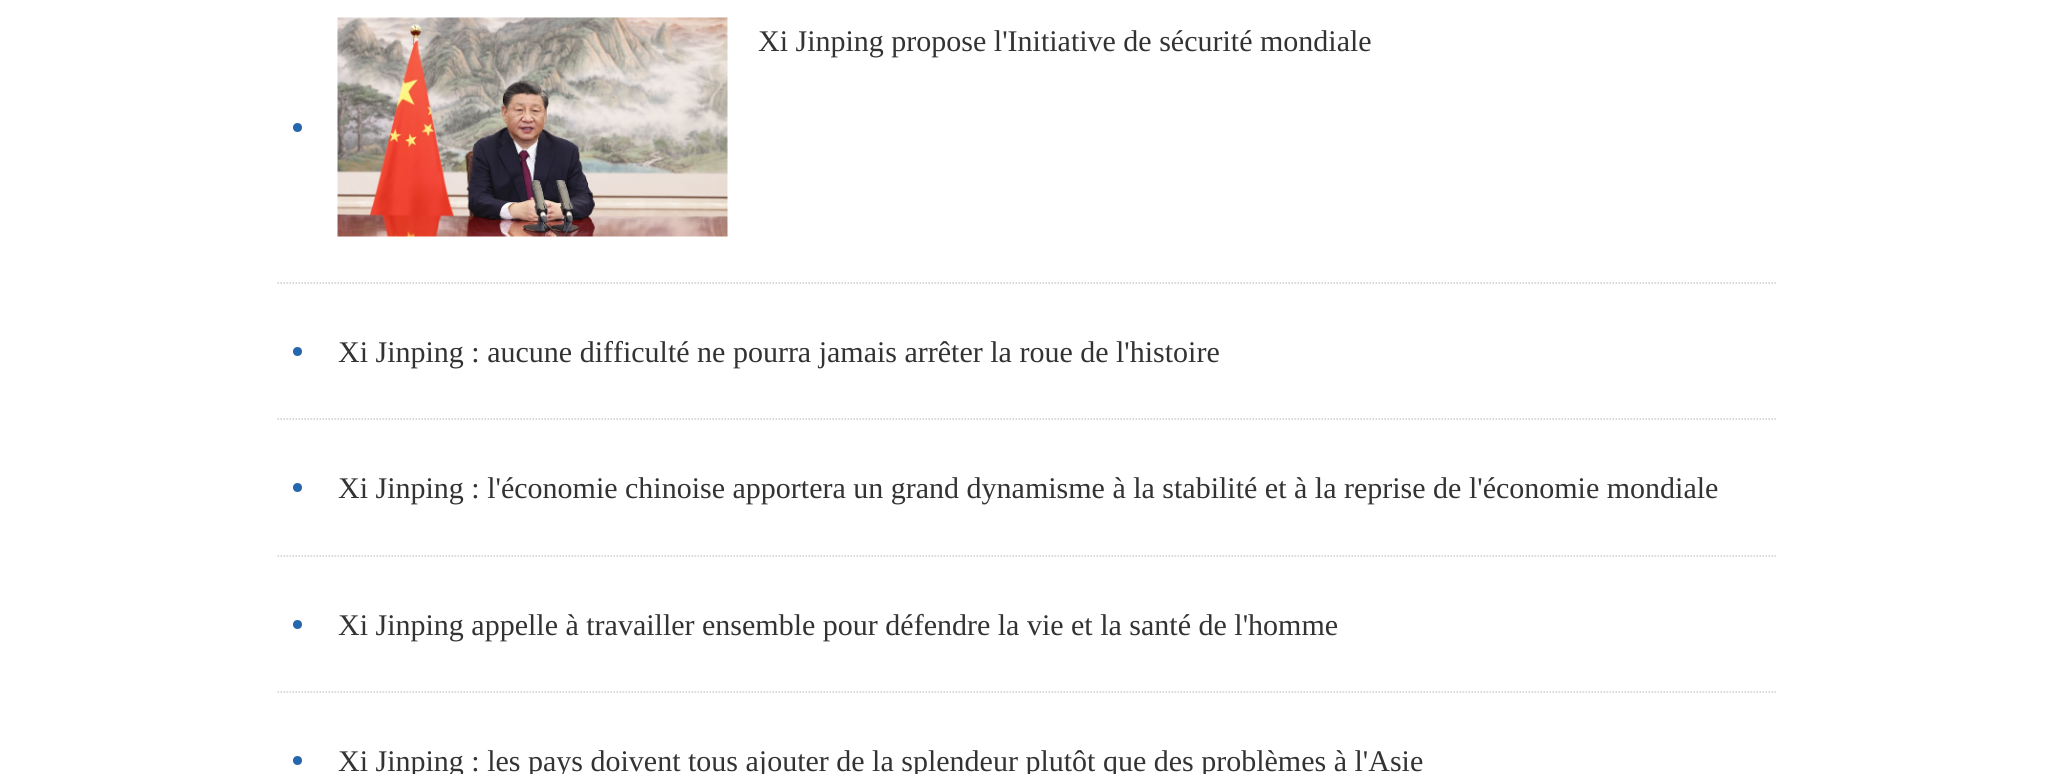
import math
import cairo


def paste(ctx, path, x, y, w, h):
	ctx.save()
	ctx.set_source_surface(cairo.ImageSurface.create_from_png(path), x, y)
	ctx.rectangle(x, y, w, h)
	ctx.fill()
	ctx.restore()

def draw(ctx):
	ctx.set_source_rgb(1, 1, 1)
	ctx.paint()
	ctx.new_path()
	ctx.move_to(277.5, 283)
	ctx.line_to(1777.5, 283)
	ctx.set_source_rgb(0.8, 0.8, 0.8)
	ctx.set_line_width(1.5)
	ctx.set_dash([1.5, 1.5])
	ctx.stroke()
	paste(ctx, 'media/1.png', 337, 17, 391, 220)
	ctx.select_font_face('Liberation Serif')
	ctx.set_font_size(30)
	ctx.set_source_rgb(0.2, 0.2, 0.2)
	ctx.move_to(758, 51)
	ctx.show_text('Xi Jinping propose l\'Initiative de sécurité mondiale')
	ctx.set_source_rgb(0.141, 0.404, 0.682)
	ctx.new_path()
	ctx.arc(297.5, 127.5, 4.5, 0, 2 * math.pi)
	ctx.fill()
	ctx.new_path()
	ctx.move_to(277.5, 419)
	ctx.line_to(1777.5, 419)
	ctx.set_source_rgb(0.8, 0.8, 0.8)
	ctx.stroke()
	ctx.set_source_rgb(0.141, 0.404, 0.682)
	ctx.arc(297.5, 351.5, 4.5, 0, 2 * math.pi)
	ctx.fill()
	ctx.set_source_rgb(0.2, 0.2, 0.2)
	ctx.move_to(338, 362)
	ctx.show_text('Xi Jinping : aucune difficulté ne pourra jamais arrêter la roue de l\'histoire')
	ctx.new_path()
	ctx.move_to(277.5, 556)
	ctx.line_to(1777.5, 556)
	ctx.set_source_rgb(0.8, 0.8, 0.8)
	ctx.stroke()
	ctx.set_source_rgb(0.141, 0.404, 0.682)
	ctx.arc(297.5, 487.5, 4.5, 0, 2 * math.pi)
	ctx.fill()
	ctx.set_source_rgb(0.2, 0.2, 0.2)
	ctx.move_to(338, 498)
	ctx.show_text('Xi Jinping : l\'économie chinoise apportera un grand dynamisme à la stabilité et à la reprise de l\'économie mondiale')
	ctx.new_path()
	ctx.move_to(277.5, 692)
	ctx.line_to(1777.5, 692)
	ctx.set_source_rgb(0.8, 0.8, 0.8)
	ctx.stroke()
	ctx.set_source_rgb(0.141, 0.404, 0.682)
	ctx.arc(297.5, 624.5, 4.5, 0, 2 * math.pi)
	ctx.fill()
	ctx.set_source_rgb(0.2, 0.2, 0.2)
	ctx.move_to(338, 635)
	ctx.show_text('Xi Jinping appelle à travailler ensemble pour défendre la vie et la santé de l\'homme')
	ctx.set_source_rgb(0.141, 0.404, 0.682)
	ctx.new_path()
	ctx.arc(297.5, 760.5, 4.5, 0, 2 * math.pi)
	ctx.fill()
	ctx.set_source_rgb(0.2, 0.2, 0.2)
	ctx.move_to(338, 771)
	ctx.show_text('Xi Jinping : les pays doivent tous ajouter de la splendeur plutôt que des problèmes à l\'Asie')


surface = cairo.ImageSurface(cairo.FORMAT_RGB24, 2055, 774)
ctx = cairo.Context(surface)
options = cairo.FontOptions()
options.set_hint_metrics(cairo.HINT_METRICS_OFF)
options.set_hint_style(cairo.HINT_STYLE_NONE)
ctx.set_font_options(options)
ctx.set_miter_limit(4)
draw(ctx)
surface.write_to_png('image.png')
